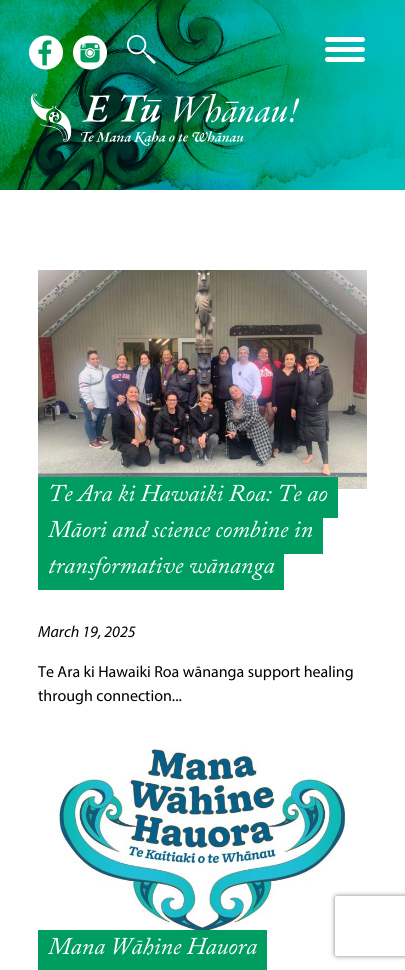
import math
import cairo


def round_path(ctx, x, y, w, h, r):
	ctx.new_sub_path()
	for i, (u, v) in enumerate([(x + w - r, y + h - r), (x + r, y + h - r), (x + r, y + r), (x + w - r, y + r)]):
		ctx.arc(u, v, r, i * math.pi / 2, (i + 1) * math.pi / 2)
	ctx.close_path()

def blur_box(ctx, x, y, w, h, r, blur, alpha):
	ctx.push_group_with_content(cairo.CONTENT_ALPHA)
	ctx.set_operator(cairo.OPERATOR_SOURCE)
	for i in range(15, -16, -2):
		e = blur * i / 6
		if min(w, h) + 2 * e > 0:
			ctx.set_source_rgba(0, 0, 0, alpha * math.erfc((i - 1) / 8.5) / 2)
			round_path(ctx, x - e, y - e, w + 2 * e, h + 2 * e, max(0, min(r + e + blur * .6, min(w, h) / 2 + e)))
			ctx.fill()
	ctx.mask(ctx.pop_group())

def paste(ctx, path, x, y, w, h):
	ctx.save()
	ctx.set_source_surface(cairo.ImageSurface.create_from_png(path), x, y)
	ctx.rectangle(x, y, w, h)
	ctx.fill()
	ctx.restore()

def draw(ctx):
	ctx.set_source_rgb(1, 1, 1)
	ctx.paint()
	paste(ctx, 'media/1.png', 0, 0, 405, 190)
	ctx.set_source_rgb(1, 1, 1)
	round_path(ctx, 325, 47, 40, 5, 2.5)
	ctx.fill()
	round_path(ctx, 325, 37, 40, 5, 2.5)
	ctx.fill()
	round_path(ctx, 325, 57, 40, 5, 2.5)
	ctx.fill()
	paste(ctx, 'media/2.png', 29, 35, 34, 35)
	paste(ctx, 'media/3.png', 73, 35, 34, 35)
	paste(ctx, 'media/4.png', 127, 35, 29, 30)
	paste(ctx, 'media/5.png', 30, 93, 270, 53)
	paste(ctx, 'media/6.png', 38, 270, 329, 219)
	ctx.set_source_rgb(0, 0.616, 0.376)
	ctx.rectangle(48, 477, 290, 41)
	ctx.fill()
	ctx.select_font_face('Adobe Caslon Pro', cairo.FONT_SLANT_ITALIC)
	ctx.set_font_size(24)
	ctx.set_source_rgb(1, 1, 1)
	ctx.move_to(48, 501)
	ctx.show_text('Te Ara ki Hawaiki Roa: Te ao')
	ctx.set_source_rgb(0, 0.616, 0.376)
	ctx.rectangle(38, 477, 10, 113)
	ctx.fill()
	ctx.rectangle(48, 518, 275, 36)
	ctx.fill()
	ctx.set_source_rgb(1, 1, 1)
	ctx.move_to(48, 537)
	ctx.show_text('Māori and science combine in')
	ctx.set_source_rgb(0, 0.616, 0.376)
	ctx.rectangle(48, 554, 236, 36)
	ctx.fill()
	ctx.set_source_rgb(1, 1, 1)
	ctx.move_to(48, 573)
	ctx.show_text('transformative wānanga')
	ctx.select_font_face('Myriad', cairo.FONT_SLANT_ITALIC)
	ctx.set_font_size(16)
	ctx.set_source_rgb(0, 0, 0)
	ctx.move_to(38, 637)
	ctx.show_text('March 19, 2025')
	ctx.select_font_face('Myriad')
	ctx.move_to(38, 677)
	ctx.show_text('Te Ara ki Hawaiki Roa wānanga support healing')
	ctx.move_to(38, 701)
	ctx.show_text('through connection...')
	paste(ctx, 'media/7.png', 55, 749, 291, 185)
	ctx.set_source_rgb(0, 0.616, 0.376)
	ctx.rectangle(38, 930, 10, 40)
	ctx.fill()
	ctx.rectangle(48, 930, 219, 40)
	ctx.fill()
	ctx.select_font_face('Adobe Caslon Pro', cairo.FONT_SLANT_ITALIC)
	ctx.set_font_size(24)
	ctx.set_source_rgb(1, 1, 1)
	ctx.move_to(48, 954)
	ctx.show_text('Mana Wāhine Hauora')
	ctx.save()
	ctx.set_fill_rule(cairo.FILL_RULE_EVEN_ODD)
	ctx.new_path()
	ctx.move_to(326, 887)
	ctx.line_to(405, 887)
	ctx.line_to(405, 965)
	ctx.line_to(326, 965)
	ctx.close_path()
	ctx.move_to(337, 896)
	ctx.line_to(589, 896)
	ctx.curve_to(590, 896, 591, 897, 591, 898)
	ctx.line_to(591, 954)
	ctx.curve_to(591, 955, 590, 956, 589, 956)
	ctx.line_to(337, 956)
	ctx.curve_to(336, 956, 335, 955, 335, 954)
	ctx.line_to(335, 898)
	ctx.curve_to(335, 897, 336, 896, 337, 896)
	ctx.close_path()
	ctx.clip()
	ctx.set_source_rgb(0.502, 0.502, 0.502)
	blur_box(ctx, 335, 896, 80, 60, 2, 2.5, 1)
	ctx.restore()


surface = cairo.ImageSurface(cairo.FORMAT_RGB24, 405, 970)
ctx = cairo.Context(surface)
options = cairo.FontOptions()
options.set_hint_metrics(cairo.HINT_METRICS_OFF)
options.set_hint_style(cairo.HINT_STYLE_NONE)
ctx.set_font_options(options)
ctx.set_miter_limit(4)
draw(ctx)
surface.write_to_png('image.png')
